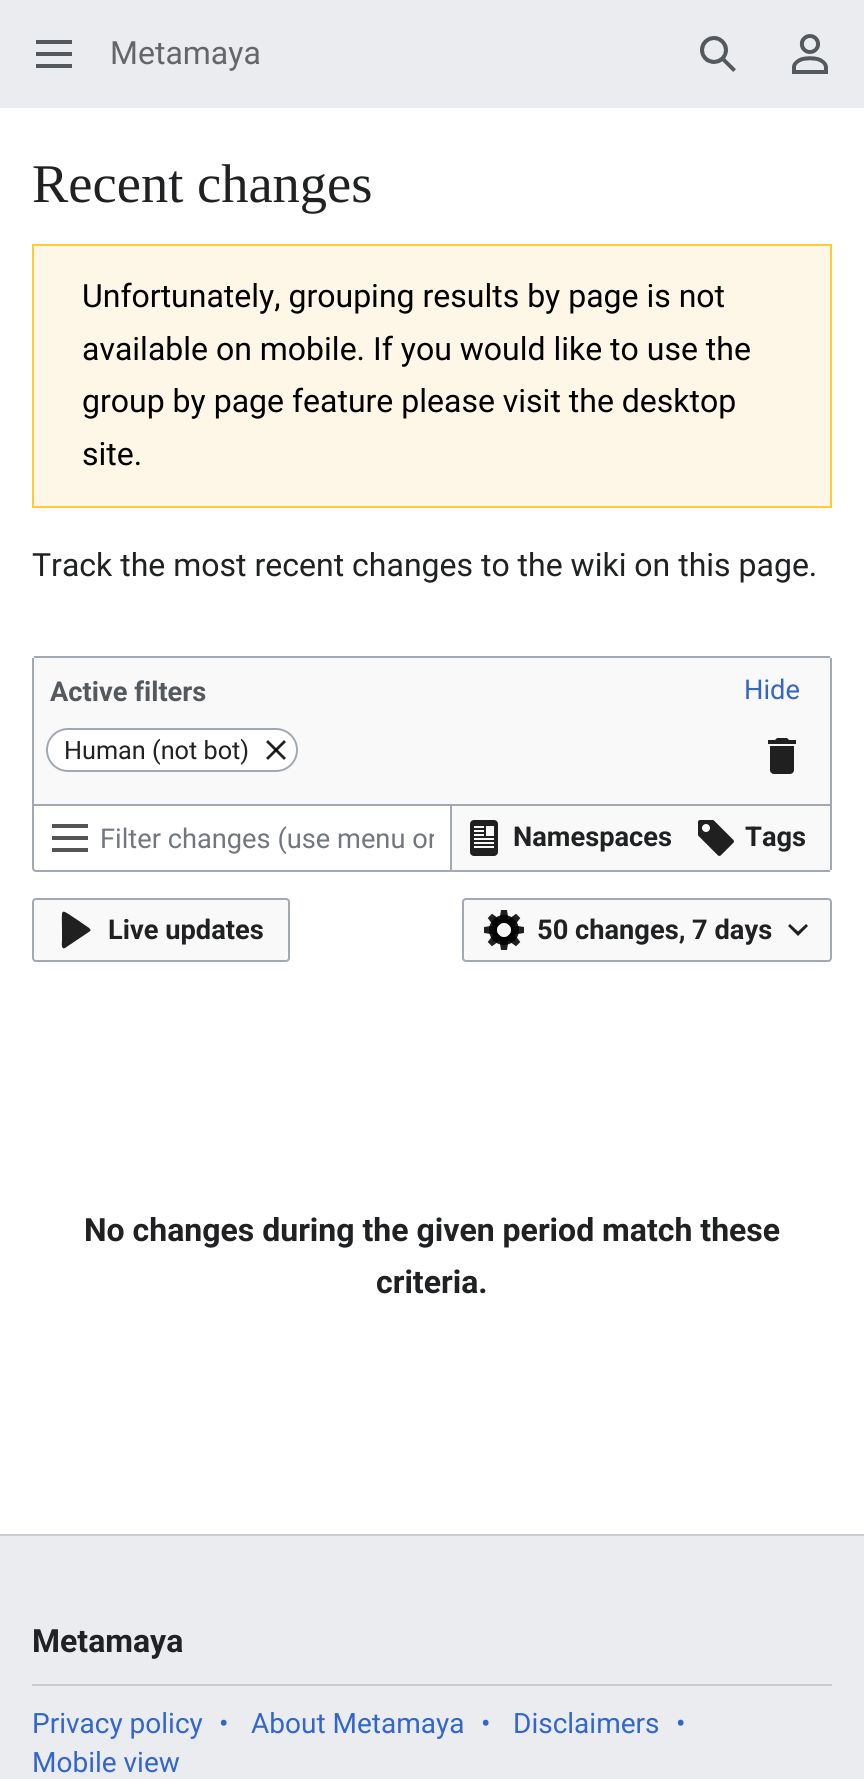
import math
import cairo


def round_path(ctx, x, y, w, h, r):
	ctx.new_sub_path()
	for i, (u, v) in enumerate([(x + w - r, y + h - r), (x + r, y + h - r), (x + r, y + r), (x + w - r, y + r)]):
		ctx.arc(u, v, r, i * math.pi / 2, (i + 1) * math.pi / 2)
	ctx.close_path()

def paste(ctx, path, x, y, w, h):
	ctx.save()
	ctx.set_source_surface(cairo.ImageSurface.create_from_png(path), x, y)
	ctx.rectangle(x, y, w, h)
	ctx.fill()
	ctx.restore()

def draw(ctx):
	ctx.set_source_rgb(0.918, 0.925, 0.941)
	ctx.paint()
	paste(ctx, 'media/1.png', 36, 40, 36, 28)
	ctx.select_font_face('Roboto')
	ctx.set_font_size(32)
	ctx.set_source_rgb(0.396, 0.4, 0.408)
	ctx.move_to(110, 64)
	ctx.show_text('Metamaya')
	paste(ctx, 'media/2.png', 700, 36, 36, 36)
	paste(ctx, 'media/3.png', 792, 34, 36, 40)
	ctx.set_source_rgb(1, 1, 1)
	ctx.rectangle(0, 108, 864, 1426)
	ctx.fill()
	ctx.select_font_face('Liberation Serif')
	ctx.set_font_size(54.5)
	ctx.set_source_rgb(0.125, 0.129, 0.133)
	ctx.move_to(32, 202)
	ctx.show_text('Recent changes')
	ctx.set_source_rgb(0.996, 0.965, 0.906)
	ctx.rectangle(33, 245, 798, 262)
	ctx.fill_preserve()
	ctx.set_source_rgb(1, 0.8, 0.2)
	ctx.stroke()
	ctx.select_font_face('Roboto')
	ctx.set_font_size(32)
	ctx.set_source_rgb(0, 0, 0)
	for x, y, s in [
		(82, 307, 'Unfortunately, grouping results by page is not'),
		(82, 360, 'available on mobile. If you would like to use the'),
		(82, 412, 'group by page feature please visit the desktop'),
		(82, 465, 'site.'),
	]:
		ctx.move_to(x, y)
		ctx.show_text(s)
	ctx.set_source_rgb(0.125, 0.129, 0.133)
	ctx.move_to(32, 576)
	ctx.show_text('Track the most recent changes to the wiki on this page.')
	ctx.set_source_rgb(0.973, 0.976, 0.98)
	ctx.rectangle(32, 656, 800, 216)
	ctx.fill()
	ctx.set_source_rgb(0.635, 0.663, 0.694)
	ctx.rectangle(34, 656, 796, 2)
	ctx.rectangle(830, 658, 2, 146)
	ctx.rectangle(32, 658, 2, 146)
	ctx.fill()
	ctx.select_font_face('Roboto', cairo.FONT_SLANT_NORMAL, cairo.FONT_WEIGHT_BOLD)
	ctx.set_font_size(27.25)
	ctx.set_source_rgb(0.329, 0.349, 0.365)
	ctx.move_to(50, 701)
	ctx.show_text('Active filters')
	ctx.select_font_face('Roboto')
	ctx.set_source_rgb(0.2, 0.4, 0.8)
	ctx.move_to(744, 699)
	ctx.show_text('Hide')
	ctx.set_source_rgb(1, 1, 1)
	round_path(ctx, 47, 729, 250, 42, 21)
	ctx.fill_preserve()
	ctx.set_source_rgb(0.635, 0.663, 0.694)
	ctx.stroke()
	ctx.set_font_size(25.25)
	ctx.set_source_rgb(0.125, 0.129, 0.133)
	ctx.move_to(64, 759)
	ctx.show_text('Human (not bot)')
	paste(ctx, 'media/4.png', 266, 740, 20, 20)
	paste(ctx, 'media/5.png', 768, 738, 28, 36)
	ctx.set_source_rgb(1, 1, 1)
	ctx.new_path()
	ctx.move_to(33, 805)
	ctx.line_to(451, 805)
	ctx.line_to(451, 871)
	ctx.line_to(36, 871)
	ctx.curve_to(34.5, 871, 33, 869.5, 33, 868)
	ctx.close_path()
	ctx.fill_preserve()
	ctx.set_source_rgb(0.635, 0.663, 0.694)
	ctx.stroke()
	ctx.set_source_rgb(0.329, 0.329, 0.329)
	ctx.new_path()
	ctx.move_to(52, 824)
	ctx.line_to(52, 828)
	ctx.line_to(88, 828)
	ctx.line_to(88, 824)
	ctx.close_path()
	ctx.move_to(52, 840)
	ctx.line_to(88, 840)
	ctx.line_to(88, 836)
	ctx.line_to(52, 836)
	ctx.close_path()
	ctx.move_to(52, 852)
	ctx.line_to(88, 852)
	ctx.line_to(88, 848)
	ctx.line_to(52, 848)
	ctx.close_path()
	ctx.fill()
	ctx.save()
	ctx.rectangle(100, 822, 334, 32)
	ctx.clip()
	ctx.set_font_size(27.25)
	ctx.set_source_rgb(0.447, 0.467, 0.49)
	ctx.move_to(100, 848)
	ctx.show_text('Filter changes (use menu or')
	ctx.restore()
	ctx.set_source_rgb(0.635, 0.663, 0.694)
	ctx.rectangle(452, 804, 380, 2)
	ctx.rectangle(830, 804, 2, 66)
	ctx.rectangle(452, 870, 378, 2)
	ctx.fill()
	paste(ctx, 'media/6.png', 470, 820, 28, 36)
	ctx.select_font_face('Roboto', cairo.FONT_SLANT_NORMAL, cairo.FONT_WEIGHT_BOLD)
	ctx.set_font_size(27.25)
	ctx.set_source_rgb(0.125, 0.129, 0.133)
	ctx.move_to(513, 846)
	ctx.show_text('Namespaces')
	paste(ctx, 'media/7.png', 698, 820, 36, 36)
	ctx.move_to(745, 846)
	ctx.show_text('Tags')
	ctx.set_source_rgb(0.973, 0.976, 0.98)
	round_path(ctx, 33, 899, 256, 62, 3)
	ctx.fill_preserve()
	ctx.set_source_rgb(0.635, 0.663, 0.694)
	ctx.stroke()
	ctx.set_source_rgb(0.125, 0.125, 0.129)
	ctx.new_path()
	ctx.move_to(65, 948)
	ctx.line_to(63.5, 948.5)
	ctx.curve_to(61, 947.5, 62, 942, 62, 941)
	ctx.line_to(62, 930)
	ctx.curve_to(62, 907, 59, 908, 77.5, 920)
	ctx.line_to(85.5, 925.5)
	ctx.curve_to(86, 926, 93, 929.5, 89.5, 931.5)
	ctx.close_path()
	ctx.fill()
	ctx.set_source_rgb(0.125, 0.129, 0.133)
	ctx.move_to(108, 939)
	ctx.show_text('Live updates')
	ctx.set_source_rgb(0.973, 0.976, 0.98)
	round_path(ctx, 463, 899, 368, 62, 3)
	ctx.fill_preserve()
	ctx.set_source_rgb(0.635, 0.663, 0.694)
	ctx.stroke()
	paste(ctx, 'media/8.png', 484, 910, 40, 40)
	ctx.set_source_rgb(0.125, 0.129, 0.133)
	ctx.move_to(537, 939)
	ctx.show_text('50 changes, 7 days')
	ctx.set_source_rgb(0.125, 0.125, 0.129)
	ctx.new_path()
	ctx.move_to(806, 924)
	ctx.line_to(798, 931.5)
	ctx.line_to(790, 924)
	ctx.line_to(788, 926)
	ctx.line_to(798, 936)
	ctx.line_to(808, 926)
	ctx.close_path()
	ctx.fill()
	ctx.set_font_size(32)
	ctx.set_source_rgb(0.125, 0.129, 0.133)
	ctx.move_to(84, 1241)
	ctx.show_text('No changes during the given period match these')
	ctx.move_to(376, 1293)
	ctx.show_text('criteria.')
	ctx.set_source_rgb(0.784, 0.8, 0.82)
	ctx.rectangle(0, 1534, 864, 2)
	ctx.fill()
	ctx.rectangle(32, 1684, 800, 2)
	ctx.fill()
	ctx.set_source_rgb(0.125, 0.129, 0.133)
	ctx.move_to(32, 1652)
	ctx.show_text('Metamaya')
	ctx.select_font_face('Roboto')
	ctx.set_font_size(28)
	ctx.set_source_rgb(0.2, 0.4, 0.8)
	for x, y, s in [
		(32, 1733, 'Privacy policy'),
		(219, 1733, '•'),
		(251, 1733, 'About Metamaya'),
		(481, 1733, '•'),
		(513, 1733, 'Disclaimers'),
		(676, 1733, '•'),
		(32, 1772, 'Mobile view'),
	]:
		ctx.move_to(x, y)
		ctx.show_text(s)


surface = cairo.ImageSurface(cairo.FORMAT_RGB24, 864, 1779)
ctx = cairo.Context(surface)
options = cairo.FontOptions()
options.set_hint_metrics(cairo.HINT_METRICS_OFF)
options.set_hint_style(cairo.HINT_STYLE_NONE)
ctx.set_font_options(options)
ctx.set_miter_limit(4)
draw(ctx)
surface.write_to_png('image.png')
